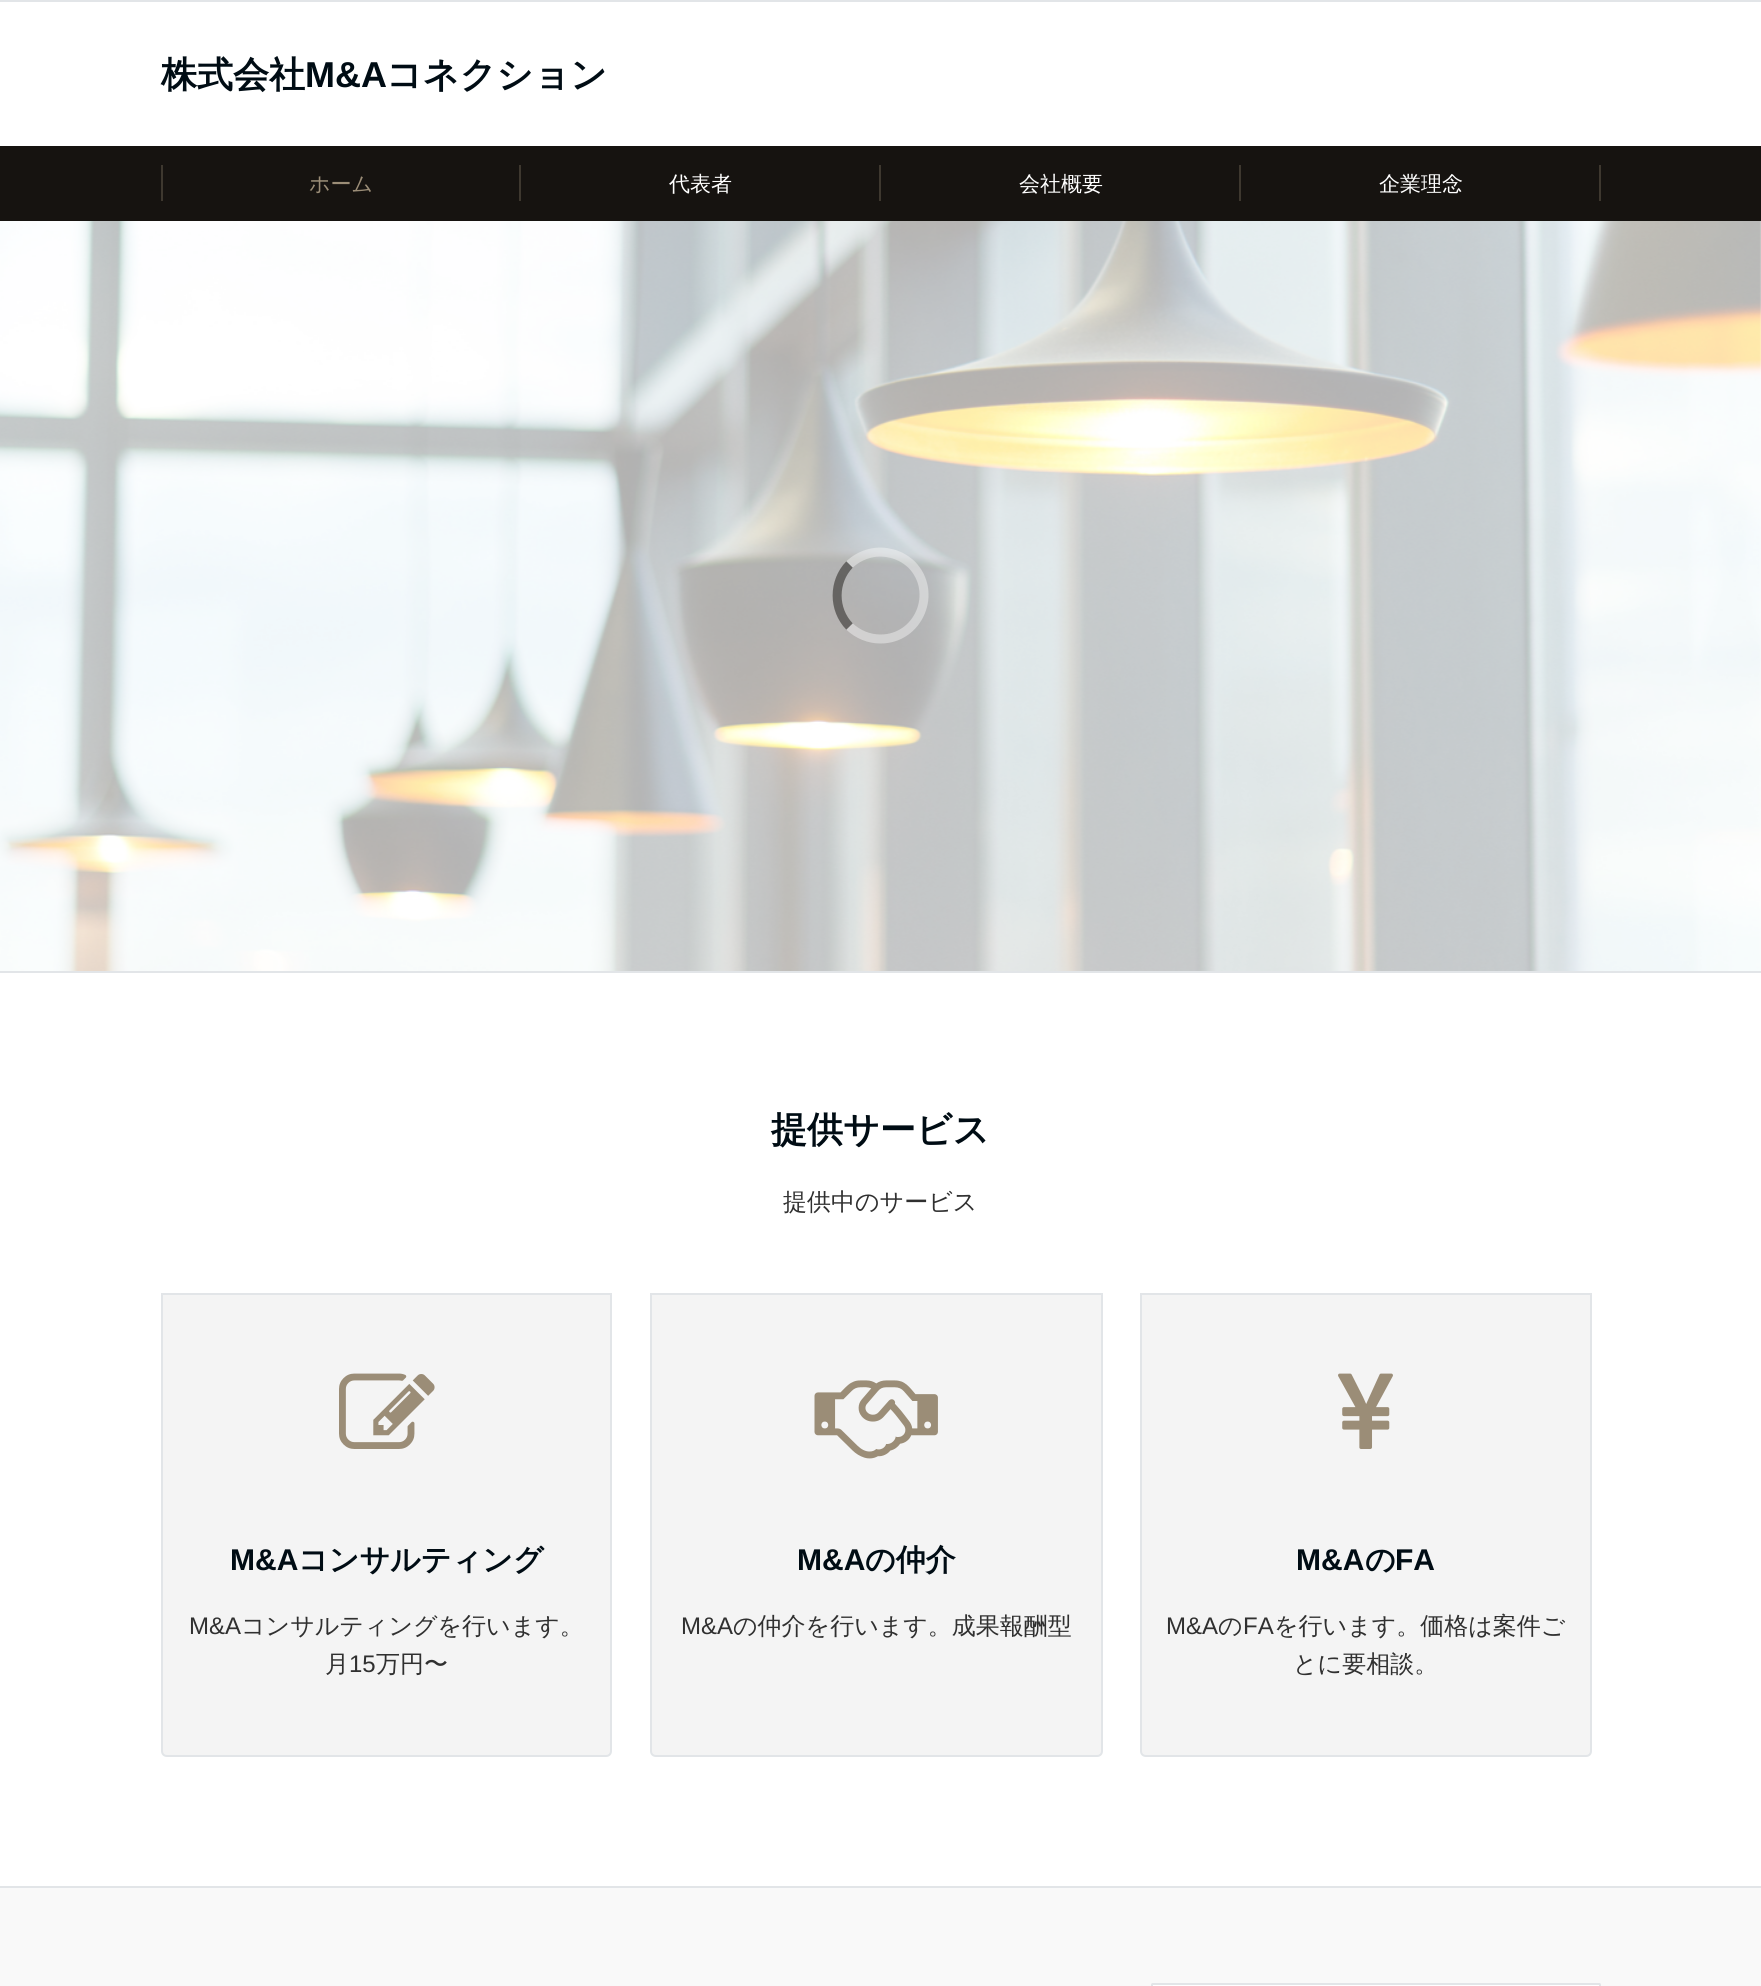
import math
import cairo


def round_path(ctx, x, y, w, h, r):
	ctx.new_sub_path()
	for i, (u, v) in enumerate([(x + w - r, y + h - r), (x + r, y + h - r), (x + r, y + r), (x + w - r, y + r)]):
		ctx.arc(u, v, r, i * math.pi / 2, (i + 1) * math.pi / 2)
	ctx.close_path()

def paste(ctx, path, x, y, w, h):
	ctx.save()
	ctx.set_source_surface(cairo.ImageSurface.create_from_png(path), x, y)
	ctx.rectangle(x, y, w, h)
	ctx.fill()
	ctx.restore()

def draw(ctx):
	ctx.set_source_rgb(0.973, 0.973, 0.973)
	ctx.paint()
	ctx.set_source_rgb(0.886, 0.898, 0.91)
	ctx.rectangle(0, 0, 1761, 2)
	ctx.fill()
	ctx.set_source_rgb(1, 1, 1)
	ctx.rectangle(0, 2, 1761, 144)
	ctx.fill()
	ctx.select_font_face('WenQuanYi Zen Hei', cairo.FONT_SLANT_NORMAL, cairo.FONT_WEIGHT_BOLD)
	ctx.set_font_size(36)
	ctx.set_source_rgb(0, 0.047, 0.082)
	ctx.move_to(161, 87)
	ctx.show_text('株式会社')
	ctx.select_font_face('Liberation Sans', cairo.FONT_SLANT_NORMAL, cairo.FONT_WEIGHT_BOLD)
	ctx.move_to(305, 87)
	ctx.show_text('M&A')
	ctx.select_font_face('WenQuanYi Zen Hei', cairo.FONT_SLANT_NORMAL, cairo.FONT_WEIGHT_BOLD)
	ctx.move_to(386, 87)
	ctx.show_text('コネクション')
	ctx.set_source_rgb(0.086, 0.078, 0.063)
	ctx.rectangle(0, 146, 1761, 75)
	ctx.fill()
	ctx.set_source_rgb(0.243, 0.22, 0.184)
	ctx.rectangle(161, 165, 2, 36)
	ctx.fill()
	ctx.select_font_face('WenQuanYi Zen Hei Medium')
	ctx.set_font_size(21)
	ctx.set_source_rgb(0.608, 0.553, 0.467)
	ctx.move_to(309, 191)
	ctx.show_text('ホーム')
	ctx.set_source_rgb(0.243, 0.22, 0.184)
	ctx.rectangle(519, 165, 2, 36)
	ctx.fill()
	ctx.set_source_rgb(1, 1, 1)
	ctx.move_to(669, 191)
	ctx.show_text('代表者')
	ctx.set_source_rgb(0.243, 0.22, 0.184)
	ctx.rectangle(879, 165, 2, 36)
	ctx.fill()
	ctx.set_source_rgb(1, 1, 1)
	ctx.move_to(1019, 191)
	ctx.show_text('会社概要')
	ctx.set_source_rgb(0.243, 0.22, 0.184)
	ctx.rectangle(1239, 165, 2, 36)
	ctx.fill()
	ctx.set_source_rgb(1, 1, 1)
	ctx.move_to(1379, 191)
	ctx.show_text('企業理念')
	ctx.set_source_rgb(0.243, 0.22, 0.184)
	ctx.rectangle(1599, 165, 2, 36)
	ctx.fill()
	paste(ctx, 'media/1.png', 0, 221, 1761, 750)
	ctx.set_source_rgba(1, 1, 1, 0.67)
	ctx.rectangle(0, 221, 1761, 750)
	ctx.fill()
	ctx.new_path()
	ctx.move_to(849.5, 564.5)
	ctx.curve_to(860, 554.5, 875, 550, 889, 553)
	ctx.curve_to(897.5, 554.5, 905, 558.5, 911.5, 564.5)
	ctx.curve_to(938.5, 592, 919, 639, 880.5, 639)
	ctx.curve_to(869, 639, 858, 634.5, 849.5, 626.5)
	ctx.set_source_rgba(0.973, 0.973, 0.973, 0.44)
	ctx.set_line_width(9)
	ctx.stroke()
	ctx.new_path()
	ctx.move_to(849.5, 626.5)
	ctx.curve_to(833, 609.5, 833, 581.5, 849.5, 564.5)
	ctx.set_source_rgba(0.086, 0.078, 0.063, 0.49)
	ctx.stroke()
	ctx.set_source_rgb(1, 1, 1)
	ctx.rectangle(0, 973, 1761, 913)
	ctx.fill()
	ctx.set_source_rgb(0.886, 0.898, 0.91)
	ctx.rectangle(0, 971, 1761, 2)
	ctx.fill()
	ctx.select_font_face('WenQuanYi Zen Hei', cairo.FONT_SLANT_NORMAL, cairo.FONT_WEIGHT_BOLD)
	ctx.set_font_size(36)
	ctx.set_source_rgb(0, 0.047, 0.082)
	ctx.move_to(771, 1142)
	ctx.show_text('提供サービス')
	ctx.select_font_face('WenQuanYi Zen Hei Medium')
	ctx.set_font_size(24)
	ctx.set_source_rgb(0.188, 0.188, 0.188)
	ctx.move_to(783, 1210)
	ctx.show_text('提供中のサービス')
	ctx.set_source_rgb(0.957, 0.957, 0.957)
	ctx.new_path()
	ctx.move_to(162, 1294)
	ctx.line_to(611, 1294)
	ctx.line_to(611, 1751)
	ctx.curve_to(611, 1754, 609, 1756, 606, 1756)
	ctx.line_to(167, 1756)
	ctx.curve_to(164, 1756, 162, 1754, 162, 1751)
	ctx.close_path()
	ctx.fill_preserve()
	ctx.set_source_rgb(0.886, 0.898, 0.91)
	ctx.set_line_width(2)
	ctx.stroke()
	paste(ctx, 'media/2.png', 339, 1373, 96, 76)
	ctx.select_font_face('Liberation Sans', cairo.FONT_SLANT_NORMAL, cairo.FONT_WEIGHT_BOLD)
	ctx.set_font_size(30)
	ctx.set_source_rgb(0, 0.047, 0.082)
	ctx.move_to(230, 1570)
	ctx.show_text('M&A')
	ctx.select_font_face('WenQuanYi Zen Hei', cairo.FONT_SLANT_NORMAL, cairo.FONT_WEIGHT_BOLD)
	ctx.move_to(298, 1570)
	ctx.show_text('コンサルティング')
	ctx.select_font_face('Liberation Sans')
	ctx.set_font_size(24)
	ctx.set_source_rgb(0.188, 0.188, 0.188)
	ctx.move_to(189, 1634)
	ctx.show_text('M&A')
	ctx.select_font_face('WenQuanYi Zen Hei Medium')
	ctx.move_to(241, 1634)
	ctx.show_text('コンサルティングを行います。')
	ctx.move_to(325, 1672)
	ctx.show_text('月')
	ctx.select_font_face('Liberation Sans')
	ctx.move_to(349, 1672)
	ctx.show_text('15')
	ctx.select_font_face('WenQuanYi Zen Hei Medium')
	ctx.move_to(376, 1672)
	ctx.show_text('万円〜')
	ctx.set_source_rgb(0.957, 0.957, 0.957)
	ctx.new_path()
	ctx.move_to(651, 1294)
	ctx.line_to(1102, 1294)
	ctx.line_to(1102, 1751)
	ctx.curve_to(1102, 1754, 1100, 1756, 1097, 1756)
	ctx.line_to(656, 1756)
	ctx.curve_to(653, 1756, 651, 1754, 651, 1751)
	ctx.close_path()
	ctx.fill_preserve()
	ctx.set_source_rgb(0.886, 0.898, 0.91)
	ctx.stroke()
	paste(ctx, 'media/3.png', 814, 1380, 124, 79)
	ctx.select_font_face('Liberation Sans', cairo.FONT_SLANT_NORMAL, cairo.FONT_WEIGHT_BOLD)
	ctx.set_font_size(30)
	ctx.set_source_rgb(0, 0.047, 0.082)
	ctx.move_to(797, 1570)
	ctx.show_text('M&A')
	ctx.select_font_face('WenQuanYi Zen Hei', cairo.FONT_SLANT_NORMAL, cairo.FONT_WEIGHT_BOLD)
	ctx.move_to(865, 1570)
	ctx.show_text('の仲介')
	ctx.select_font_face('Liberation Sans')
	ctx.set_font_size(24)
	ctx.set_source_rgb(0.188, 0.188, 0.188)
	ctx.move_to(681, 1634)
	ctx.show_text('M&A')
	ctx.select_font_face('WenQuanYi Zen Hei Medium')
	ctx.move_to(733, 1634)
	ctx.show_text('の仲介を行います。成果報酬型')
	ctx.set_source_rgb(0.957, 0.957, 0.957)
	ctx.new_path()
	ctx.move_to(1141, 1294)
	ctx.line_to(1591, 1294)
	ctx.line_to(1591, 1751)
	ctx.curve_to(1591, 1754, 1589, 1756, 1586, 1756)
	ctx.line_to(1146, 1756)
	ctx.curve_to(1143, 1756, 1141, 1754, 1141, 1751)
	ctx.close_path()
	ctx.fill_preserve()
	ctx.set_source_rgb(0.886, 0.898, 0.91)
	ctx.stroke()
	paste(ctx, 'media/4.png', 1338, 1373, 55, 76)
	ctx.select_font_face('Liberation Sans', cairo.FONT_SLANT_NORMAL, cairo.FONT_WEIGHT_BOLD)
	ctx.set_font_size(30)
	ctx.set_source_rgb(0, 0.047, 0.082)
	ctx.move_to(1296, 1570)
	ctx.show_text('M&A')
	ctx.select_font_face('WenQuanYi Zen Hei', cairo.FONT_SLANT_NORMAL, cairo.FONT_WEIGHT_BOLD)
	ctx.move_to(1365, 1570)
	ctx.show_text('の')
	ctx.select_font_face('Liberation Sans', cairo.FONT_SLANT_NORMAL, cairo.FONT_WEIGHT_BOLD)
	ctx.move_to(1395, 1570)
	ctx.show_text('FA')
	ctx.select_font_face('Liberation Sans')
	ctx.set_font_size(24)
	ctx.set_source_rgb(0.188, 0.188, 0.188)
	ctx.move_to(1166, 1634)
	ctx.show_text('M&A')
	ctx.select_font_face('WenQuanYi Zen Hei Medium')
	ctx.move_to(1218, 1634)
	ctx.show_text('の')
	ctx.select_font_face('Liberation Sans')
	ctx.move_to(1243, 1634)
	ctx.show_text('FA')
	ctx.select_font_face('WenQuanYi Zen Hei Medium')
	ctx.move_to(1274, 1634)
	ctx.show_text('を行います。価格は案件ご')
	ctx.move_to(1293, 1672)
	ctx.show_text('とに要相談。')
	ctx.set_source_rgb(0.886, 0.898, 0.91)
	ctx.rectangle(0, 1886, 1761, 2)
	ctx.fill()
	ctx.set_source_rgb(1, 1, 1)
	round_path(ctx, 1152, 1984, 448, 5, 0.5)
	ctx.fill_preserve()
	ctx.set_source_rgb(0.886, 0.898, 0.91)
	ctx.stroke()


surface = cairo.ImageSurface(cairo.FORMAT_RGB24, 1761, 1986)
ctx = cairo.Context(surface)
options = cairo.FontOptions()
options.set_hint_metrics(cairo.HINT_METRICS_OFF)
options.set_hint_style(cairo.HINT_STYLE_NONE)
ctx.set_font_options(options)
ctx.set_miter_limit(4)
draw(ctx)
surface.write_to_png('image.png')
